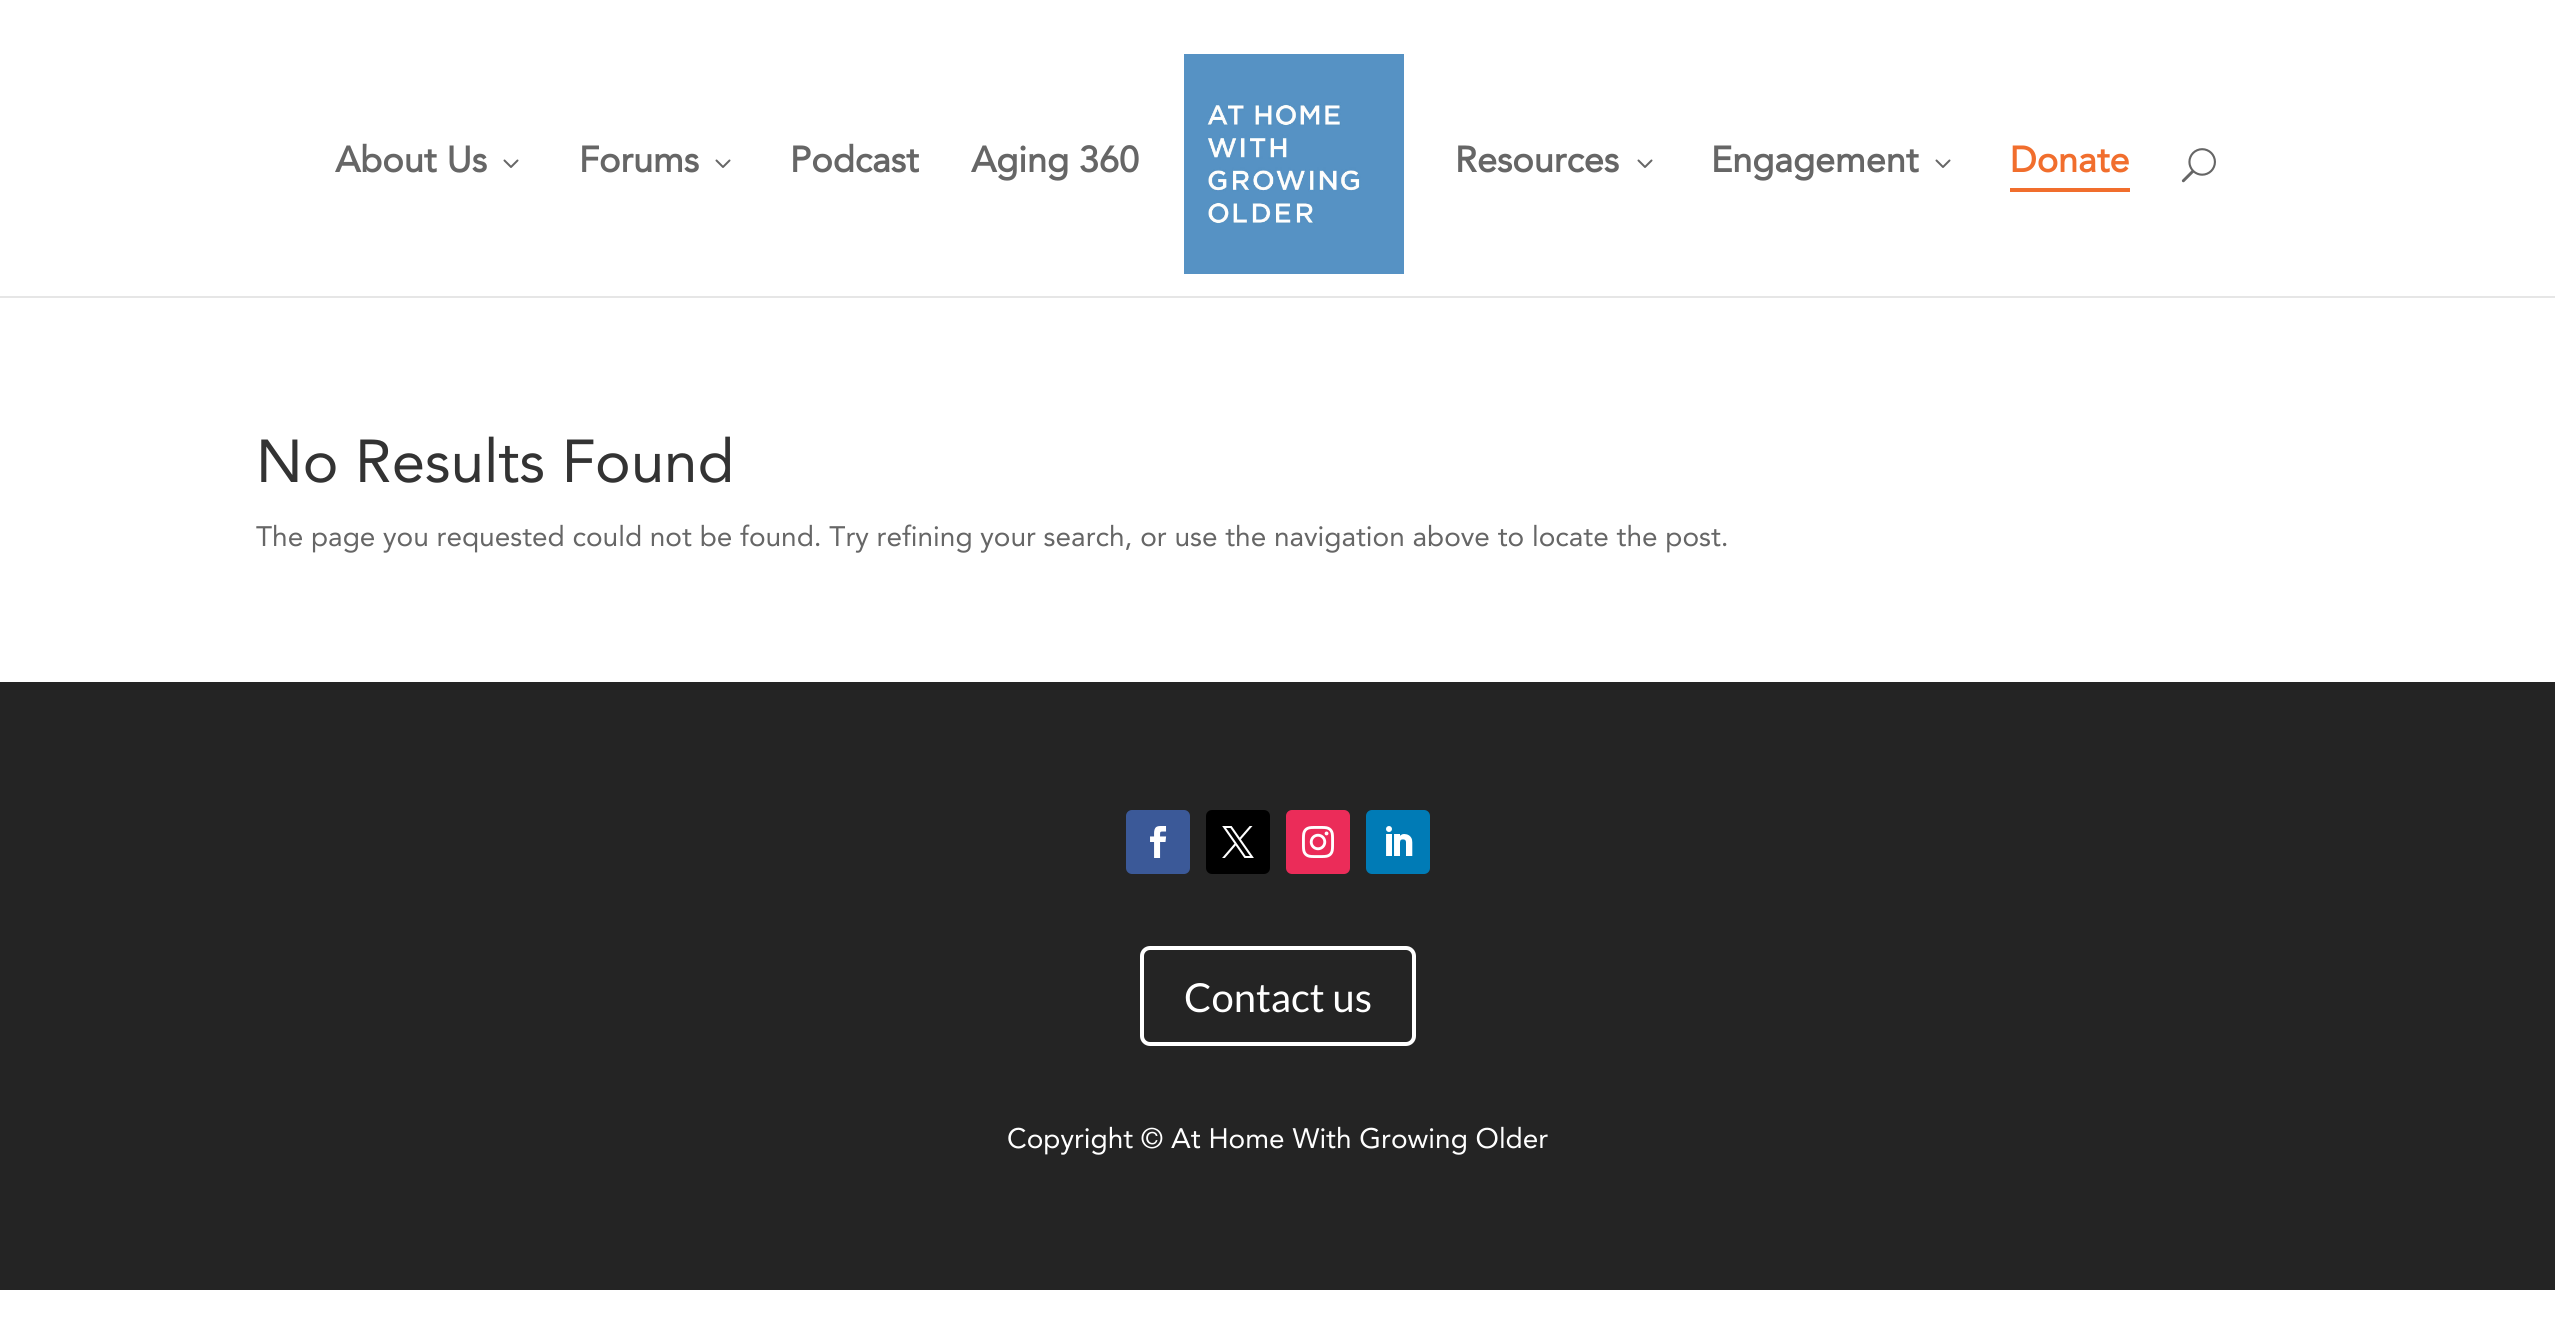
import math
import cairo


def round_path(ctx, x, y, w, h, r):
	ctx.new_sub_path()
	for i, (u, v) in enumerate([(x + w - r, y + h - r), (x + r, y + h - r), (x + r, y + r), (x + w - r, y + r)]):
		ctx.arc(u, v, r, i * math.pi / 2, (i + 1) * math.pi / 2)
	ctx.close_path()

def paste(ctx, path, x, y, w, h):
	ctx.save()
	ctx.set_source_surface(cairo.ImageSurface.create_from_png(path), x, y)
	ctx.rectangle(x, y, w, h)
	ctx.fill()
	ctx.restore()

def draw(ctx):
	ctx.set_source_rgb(1, 1, 1)
	ctx.paint()
	ctx.set_source_rgb(0.902, 0.902, 0.902)
	ctx.rectangle(0, 296, 2555, 2)
	ctx.fill()
	ctx.select_font_face('Avenir', cairo.FONT_SLANT_NORMAL, cairo.FONT_WEIGHT_BOLD)
	ctx.set_font_size(36)
	ctx.set_source_rgb(0.4, 0.4, 0.4)
	ctx.move_to(335, 172)
	ctx.show_text('About Us')
	paste(ctx, 'media/1.png', 503, 159, 16, 9)
	ctx.move_to(579, 172)
	ctx.show_text('Forums')
	paste(ctx, 'media/1.png', 715, 159, 16, 9)
	ctx.move_to(790, 172)
	ctx.show_text('Podcast')
	ctx.move_to(971, 172)
	ctx.show_text('Aging 360')
	paste(ctx, 'media/2.png', 1184, 54, 220, 220)
	ctx.move_to(1455, 172)
	ctx.show_text('Resources')
	paste(ctx, 'media/1.png', 1637, 159, 16, 9)
	ctx.move_to(1711, 172)
	ctx.show_text('Engagement')
	paste(ctx, 'media/1.png', 1935, 159, 16, 9)
	ctx.set_source_rgb(0.945, 0.431, 0.176)
	ctx.move_to(2010, 172)
	ctx.show_text('Donate')
	ctx.rectangle(2010, 188, 120, 4)
	ctx.fill()
	paste(ctx, 'media/3.png', 2181, 148, 35, 35)
	ctx.select_font_face('Avenir')
	ctx.set_font_size(60)
	ctx.set_source_rgb(0.2, 0.2, 0.2)
	ctx.move_to(256, 482)
	ctx.show_text('No Results Found')
	ctx.set_font_size(28)
	ctx.set_source_rgb(0.4, 0.4, 0.4)
	ctx.move_to(256, 546)
	ctx.show_text('The page you requested could not be found. Try refining your search, or use the navigation above to locate the post.')
	ctx.set_source_rgb(0.141, 0.141, 0.141)
	ctx.rectangle(0, 682, 2555, 608)
	ctx.fill()
	ctx.set_source_rgb(0.231, 0.349, 0.596)
	round_path(ctx, 1126, 810, 64, 64, 6)
	ctx.fill()
	paste(ctx, 'media/4.png', 1150, 826, 17, 32)
	ctx.set_source_rgb(0, 0, 0)
	round_path(ctx, 1206, 810, 64, 64, 6)
	ctx.fill()
	paste(ctx, 'media/5.png', 1222, 826, 32, 32)
	ctx.set_source_rgb(0.918, 0.173, 0.349)
	round_path(ctx, 1286, 810, 64, 64, 6)
	ctx.fill()
	paste(ctx, 'media/6.png', 1302, 826, 32, 32)
	ctx.set_source_rgb(0, 0.482, 0.714)
	round_path(ctx, 1366, 810, 64, 64, 6)
	ctx.fill()
	paste(ctx, 'media/7.png', 1386, 826, 27, 30)
	round_path(ctx, 1142, 948, 272, 96, 8)
	ctx.set_source_rgb(1, 1, 1)
	ctx.set_line_width(4)
	ctx.stroke()
	ctx.select_font_face('Lato')
	ctx.set_font_size(40)
	ctx.move_to(1184, 1012)
	ctx.show_text('Contact us')
	ctx.select_font_face('Avenir')
	ctx.set_font_size(28)
	ctx.move_to(1007, 1148)
	ctx.show_text('Copyright © At Home With Growing Older')


surface = cairo.ImageSurface(cairo.FORMAT_RGB24, 2555, 1341)
ctx = cairo.Context(surface)
options = cairo.FontOptions()
options.set_hint_metrics(cairo.HINT_METRICS_OFF)
options.set_hint_style(cairo.HINT_STYLE_NONE)
ctx.set_font_options(options)
ctx.set_miter_limit(4)
draw(ctx)
surface.write_to_png('image.png')
